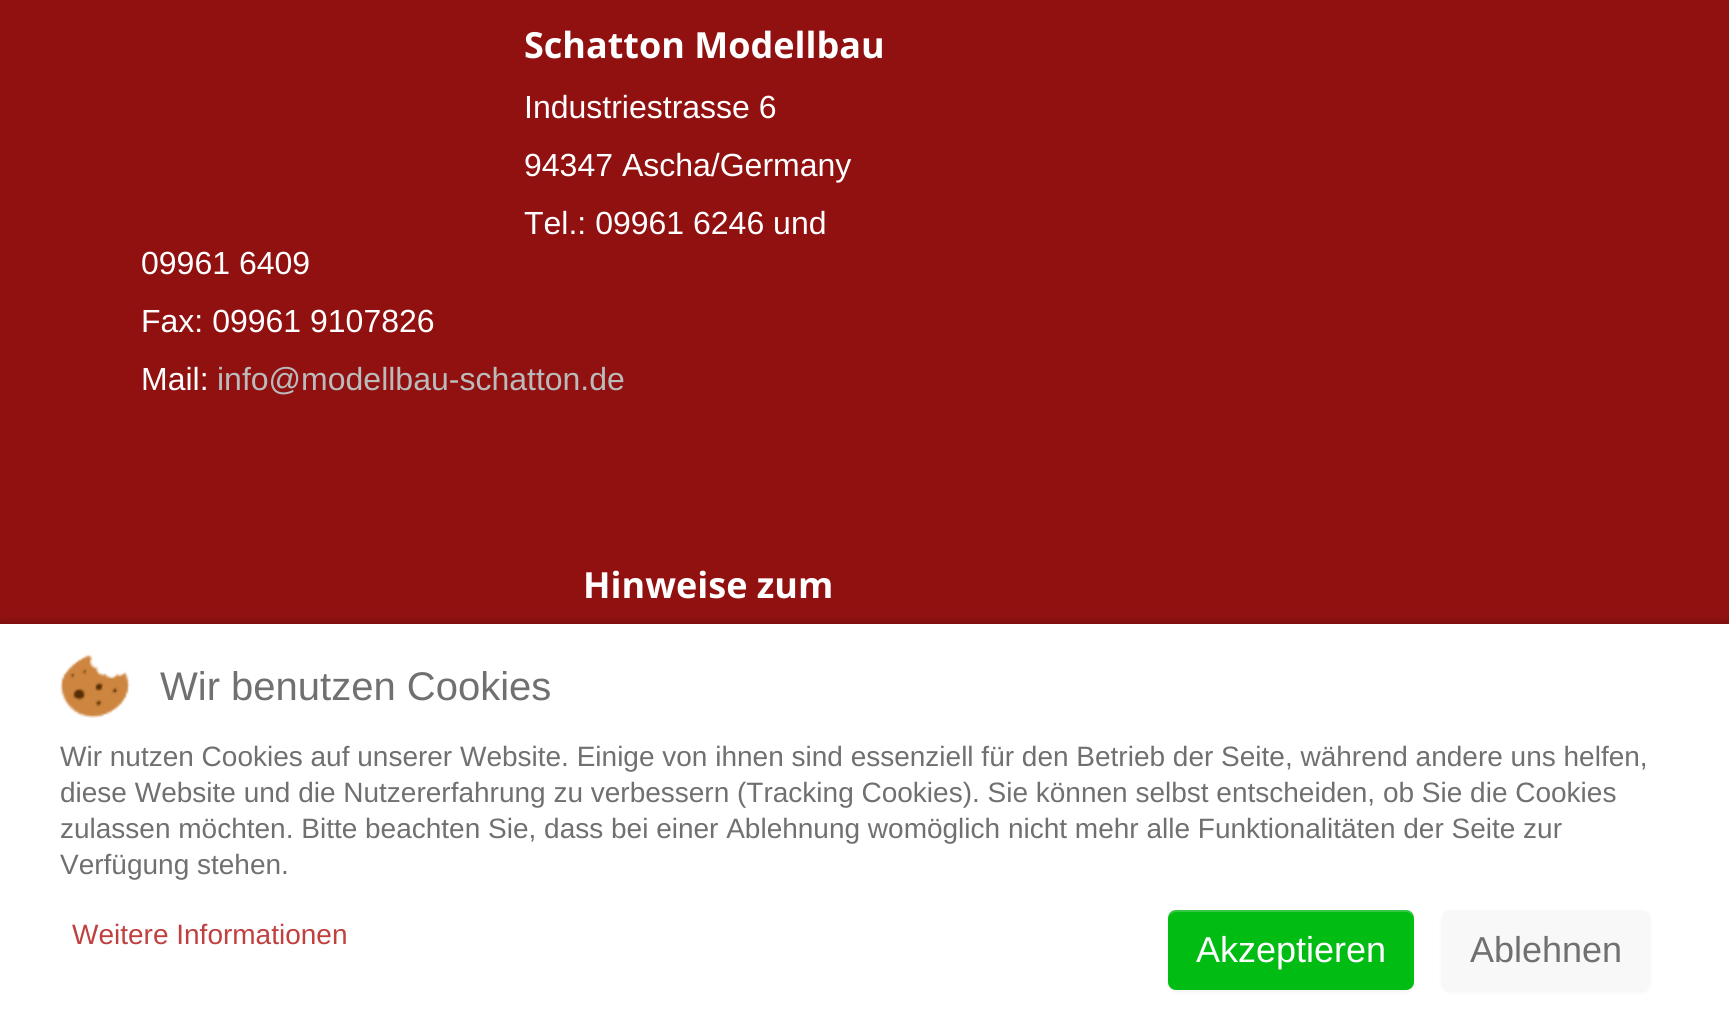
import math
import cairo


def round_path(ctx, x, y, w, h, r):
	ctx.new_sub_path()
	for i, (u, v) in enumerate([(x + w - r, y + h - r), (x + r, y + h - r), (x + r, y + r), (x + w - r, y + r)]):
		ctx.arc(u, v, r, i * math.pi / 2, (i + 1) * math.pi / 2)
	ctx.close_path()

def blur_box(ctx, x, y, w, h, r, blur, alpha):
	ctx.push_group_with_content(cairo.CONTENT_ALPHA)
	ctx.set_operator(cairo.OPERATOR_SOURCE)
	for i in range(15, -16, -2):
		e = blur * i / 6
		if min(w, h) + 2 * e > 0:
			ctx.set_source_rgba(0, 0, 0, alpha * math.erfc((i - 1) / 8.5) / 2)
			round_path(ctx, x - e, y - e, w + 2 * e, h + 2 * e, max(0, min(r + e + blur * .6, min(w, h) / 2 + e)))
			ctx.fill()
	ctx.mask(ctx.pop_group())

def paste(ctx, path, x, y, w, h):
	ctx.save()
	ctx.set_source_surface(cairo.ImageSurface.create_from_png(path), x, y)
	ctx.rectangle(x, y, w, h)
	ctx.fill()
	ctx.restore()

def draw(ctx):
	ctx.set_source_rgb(0.569, 0.067, 0.067)
	ctx.paint()
	ctx.select_font_face('Open Sans', cairo.FONT_SLANT_NORMAL, cairo.FONT_WEIGHT_BOLD)
	ctx.set_font_size(36)
	ctx.set_source_rgb(1, 1, 1)
	ctx.move_to(524, 58)
	ctx.show_text('Schatton Modellbau')
	ctx.select_font_face('Liberation Sans')
	ctx.set_font_size(32)
	for x, y, s in [
		(524, 118, 'Industriestrasse 6'),
		(524, 176, '94347 Ascha/Germany'),
		(524, 234, 'Tel.: 09961 6246 und'),
		(141, 274, '09961 6409'),
		(141, 332, 'Fax: 09961 9107826'),
		(141, 390, 'Mail:'),
	]:
		ctx.move_to(x, y)
		ctx.show_text(s)
	ctx.set_source_rgb(0.733, 0.733, 0.733)
	ctx.move_to(217, 390)
	ctx.show_text('info@modellbau-schatton.de')
	ctx.select_font_face('Open Sans', cairo.FONT_SLANT_NORMAL, cairo.FONT_WEIGHT_BOLD)
	ctx.set_font_size(36)
	ctx.set_source_rgb(1, 1, 1)
	ctx.move_to(583, 598)
	ctx.show_text('Hinweise zum')
	ctx.set_source_rgb(0, 0, 0)
	blur_box(ctx, 0, 624, 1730, 396, 0, 5, 0.25)
	ctx.set_source_rgb(1, 1, 1)
	ctx.rectangle(0, 624, 1729, 396)
	ctx.fill()
	paste(ctx, 'media/1.png', 60, 654, 70, 64)
	ctx.select_font_face('Liberation Sans')
	ctx.set_font_size(40)
	ctx.set_source_rgb(0.439, 0.439, 0.439)
	ctx.move_to(160, 700)
	ctx.show_text('Wir benutzen Cookies')
	ctx.set_font_size(28)
	for x, y, s in [
		(60, 766, 'Wir nutzen Cookies auf unserer Website. Einige von ihnen sind essenziell für den Betrieb der Seite, während andere uns helfen,'),
		(60, 802, 'diese Website und die Nutzererfahrung zu verbessern (Tracking Cookies). Sie können selbst entscheiden, ob Sie die Cookies'),
		(60, 838, 'zulassen möchten. Bitte beachten Sie, dass bei einer Ablehnung womöglich nicht mehr alle Funktionalitäten der Seite zur'),
		(60, 874, 'Verfügung stehen.'),
	]:
		ctx.move_to(x, y)
		ctx.show_text(s)
	ctx.set_source_rgb(0.753, 0.251, 0.251)
	ctx.move_to(72, 944)
	ctx.show_text('Weitere Informationen')
	ctx.set_source_rgb(0, 0, 0)
	blur_box(ctx, 1168, 912, 246, 80, 8, 2, 0.05)
	ctx.set_source_rgb(0, 0.737, 0.075)
	round_path(ctx, 1168, 910, 246, 80, 8)
	ctx.fill()
	ctx.set_source_rgba(1, 1, 1, 0.2)
	ctx.new_path()
	ctx.move_to(1176, 912)
	ctx.line_to(1406, 912)
	ctx.curve_to(1410, 912, 1414, 916, 1414, 920)
	ctx.line_to(1414, 918)
	ctx.curve_to(1414, 914, 1410, 910, 1406, 910)
	ctx.line_to(1176, 910)
	ctx.curve_to(1172, 910, 1168, 914, 1168, 918)
	ctx.line_to(1168, 920)
	ctx.curve_to(1168, 916, 1172, 912, 1176, 912)
	ctx.close_path()
	ctx.fill()
	ctx.set_font_size(36)
	ctx.set_source_rgb(1, 1, 1)
	ctx.move_to(1196, 962)
	ctx.show_text('Akzeptieren')
	ctx.set_source_rgb(0, 0, 0)
	blur_box(ctx, 1442, 912, 208, 80, 8, 2, 0.05)
	ctx.set_source_rgb(0.969, 0.969, 0.969)
	round_path(ctx, 1442, 910, 208, 80, 8)
	ctx.fill()
	ctx.set_source_rgb(0.439, 0.439, 0.439)
	ctx.move_to(1470, 962)
	ctx.show_text('Ablehnen')


surface = cairo.ImageSurface(cairo.FORMAT_RGB24, 1729, 1020)
ctx = cairo.Context(surface)
options = cairo.FontOptions()
options.set_hint_metrics(cairo.HINT_METRICS_OFF)
options.set_hint_style(cairo.HINT_STYLE_NONE)
ctx.set_font_options(options)
ctx.set_miter_limit(4)
draw(ctx)
surface.write_to_png('image.png')
